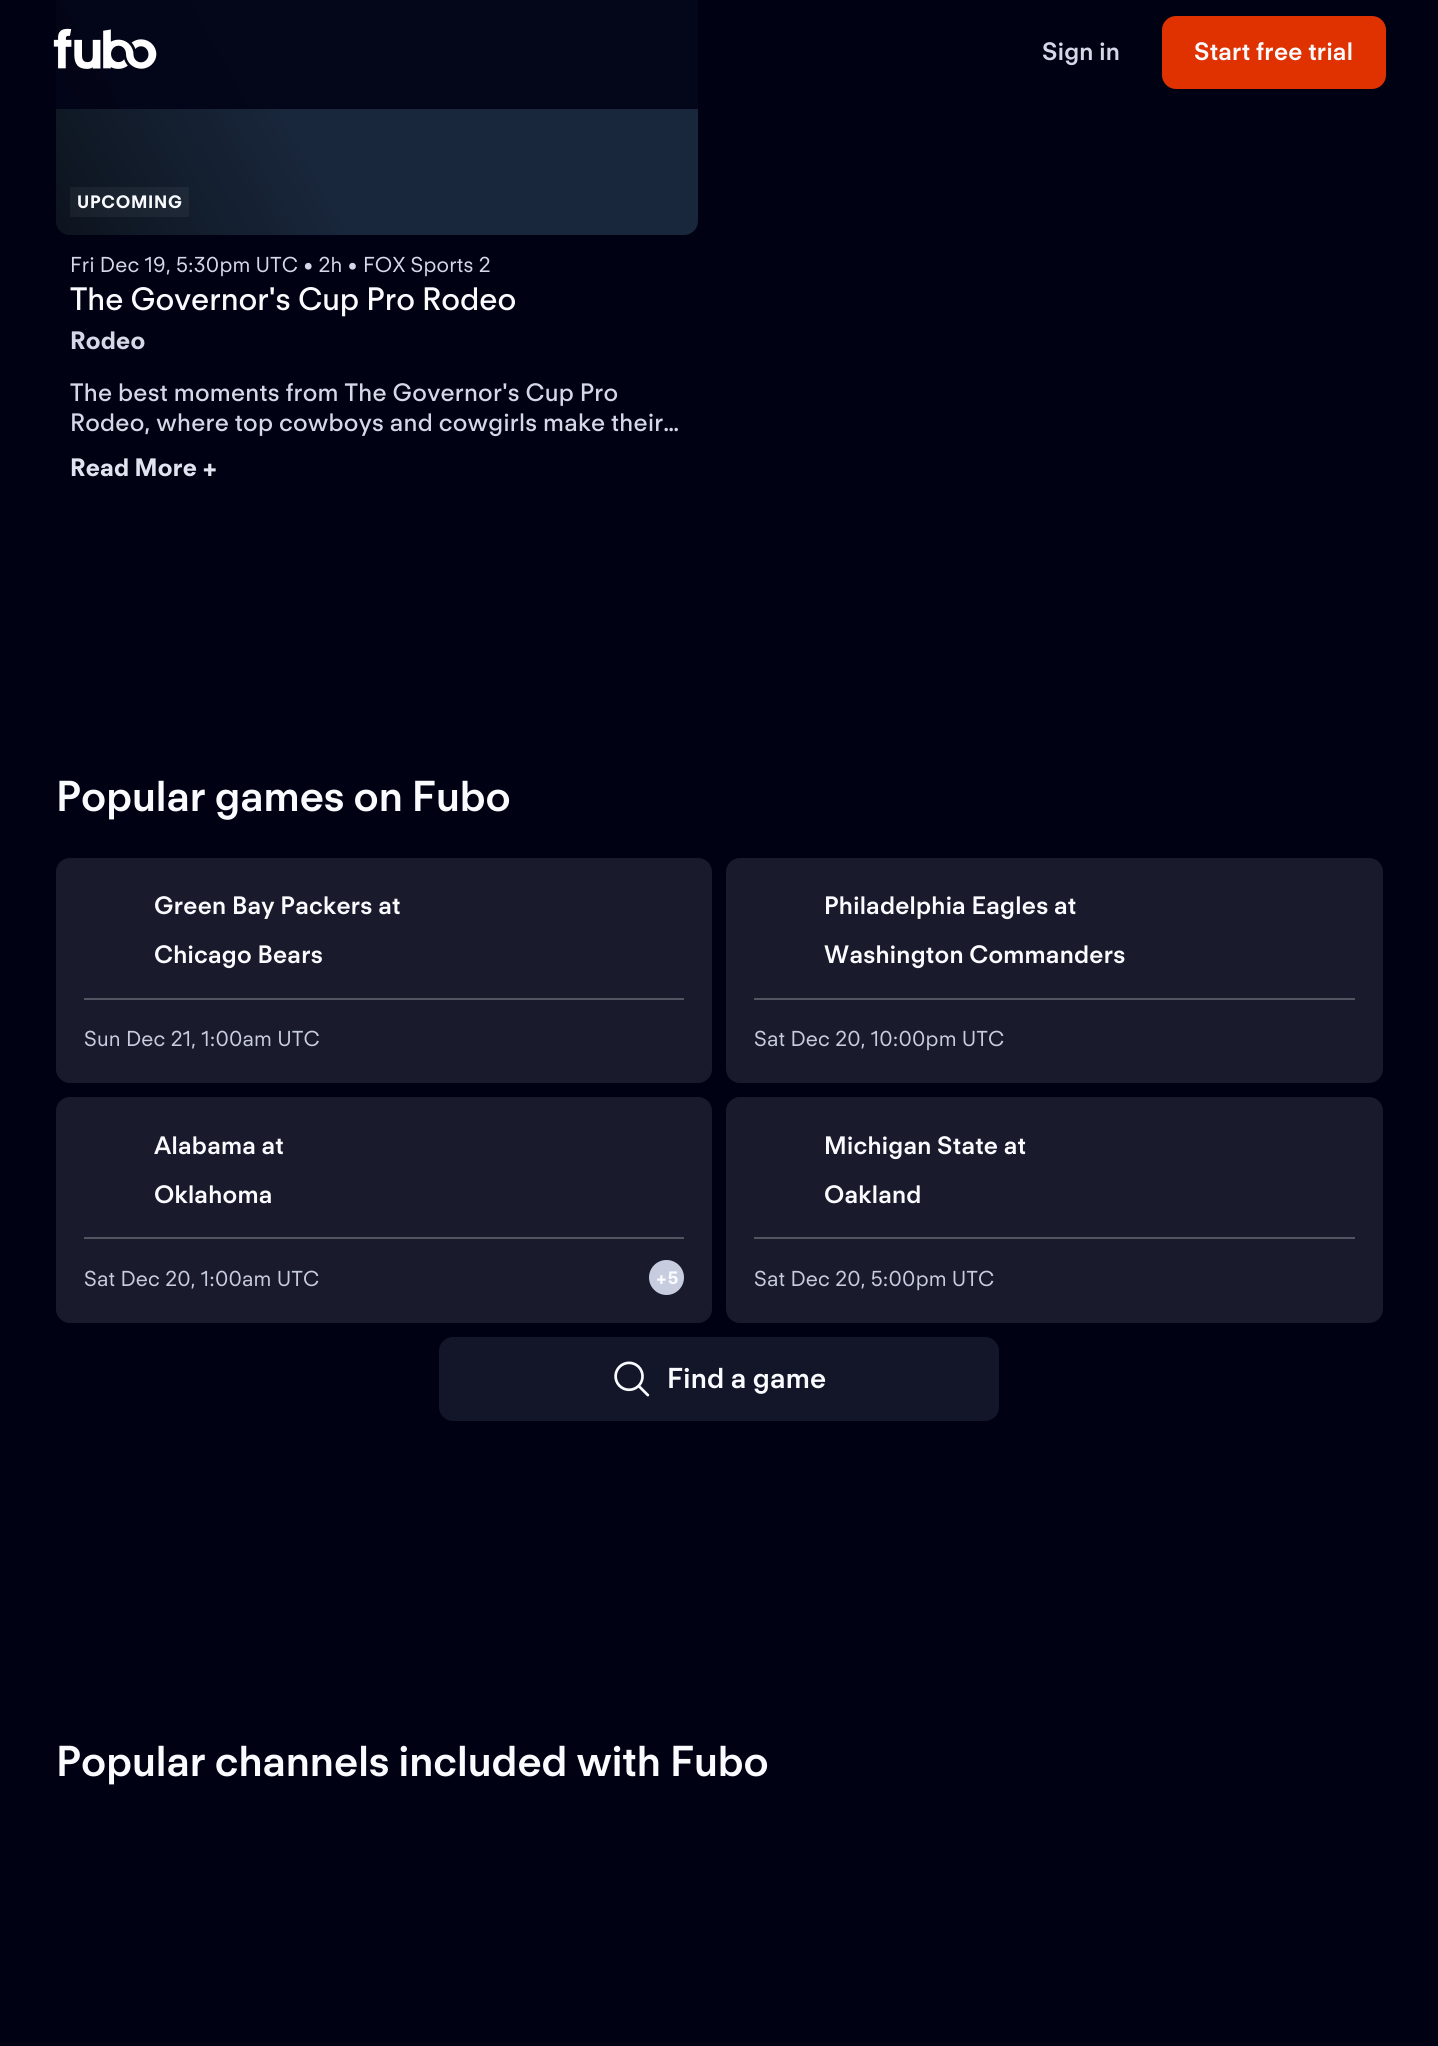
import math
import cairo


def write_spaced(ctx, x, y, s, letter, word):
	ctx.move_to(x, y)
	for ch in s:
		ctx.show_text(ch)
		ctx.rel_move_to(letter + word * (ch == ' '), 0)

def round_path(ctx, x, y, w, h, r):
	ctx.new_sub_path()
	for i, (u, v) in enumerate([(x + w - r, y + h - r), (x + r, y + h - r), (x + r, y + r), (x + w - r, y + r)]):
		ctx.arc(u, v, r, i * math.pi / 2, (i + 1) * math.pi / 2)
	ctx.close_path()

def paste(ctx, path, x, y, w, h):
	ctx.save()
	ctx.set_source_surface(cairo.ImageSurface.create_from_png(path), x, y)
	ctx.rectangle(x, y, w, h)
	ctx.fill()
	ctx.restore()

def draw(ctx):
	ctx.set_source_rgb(0, 0.008, 0.082)
	ctx.paint()
	ctx.set_source_rgb(0.098, 0.153, 0.235)
	round_path(ctx, 56, -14, 642, 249, 14)
	ctx.fill()
	gradient = cairo.LinearGradient(56, 235, 698, -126)
	gradient.add_color_stop_rgba(0, 0, 0, 0, 0.5)
	gradient.add_color_stop_rgba(0.36, 0, 0, 0, 0)
	ctx.set_source(gradient)
	round_path(ctx, 56, -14, 642, 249, 14)
	ctx.fill()
	ctx.set_source_rgba(0, 0.008, 0.082, 0.85)
	ctx.rectangle(56, 0, 642, 109)
	ctx.fill()
	paste(ctx, 'media/1.png', 53, 28, 104, 41)
	ctx.select_font_face('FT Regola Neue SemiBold')
	ctx.set_font_size(24.5)
	ctx.set_source_rgb(0.835, 0.847, 0.906)
	write_spaced(ctx, 1042, 60, 'Sign in', 0.25, 0)
	ctx.set_source_rgb(0.878, 0.192, 0)
	round_path(ctx, 1162, 16, 224, 73, 14)
	ctx.fill()
	ctx.set_source_rgb(0.98, 0.984, 1)
	write_spaced(ctx, 1194, 60, 'Start free trial', 0.25, 0)
	ctx.set_source_rgba(1, 1, 1, 0.05)
	ctx.rectangle(70, 187, 119, 30)
	ctx.fill()
	ctx.select_font_face('FT Regola Neue', cairo.FONT_SLANT_NORMAL, cairo.FONT_WEIGHT_BOLD)
	ctx.set_font_size(17.5)
	ctx.set_source_rgb(0.98, 0.984, 1)
	write_spaced(ctx, 77, 208, 'UPCOMING', 0.75, 0)
	ctx.select_font_face('FT Regola Neue')
	ctx.set_font_size(21)
	ctx.set_source_rgb(0.835, 0.847, 0.906)
	write_spaced(ctx, 70, 272, 'Fri Dec 19, 5:30pm UTC • 2h • FOX Sports 2', 0.2, 0)
	ctx.select_font_face('FT Regola Neue Medium')
	ctx.set_font_size(31.5)
	ctx.set_source_rgb(0.98, 0.984, 1)
	ctx.move_to(70, 310)
	ctx.show_text('The Governor\'s Cup Pro Rodeo')
	ctx.select_font_face('FT Regola Neue', cairo.FONT_SLANT_NORMAL, cairo.FONT_WEIGHT_BOLD)
	ctx.set_font_size(24.5)
	ctx.set_source_rgb(0.835, 0.847, 0.906)
	write_spaced(ctx, 70, 349, 'Rodeo', 0.25, 0)
	ctx.select_font_face('FT Regola Neue Medium')
	write_spaced(ctx, 70, 401, 'The best moments from The Governor\'s Cup Pro', 0.25, 0)
	write_spaced(ctx, 70, 431, 'Rodeo, where top cowboys and cowgirls make their…', 0.25, 0)
	ctx.select_font_face('FT Regola Neue', cairo.FONT_SLANT_NORMAL, cairo.FONT_WEIGHT_BOLD)
	ctx.set_source_rgb(0.882, 0.89, 0.937)
	write_spaced(ctx, 70, 476, 'Read More +', 0.25, 0)
	ctx.select_font_face('FT Regola Neue SemiBold')
	ctx.set_font_size(42)
	ctx.set_source_rgb(0.98, 0.984, 1)
	ctx.move_to(56, 811)
	ctx.show_text('Popular games on Fubo')
	ctx.set_source_rgb(0.098, 0.106, 0.173)
	round_path(ctx, 56, 858, 656, 225, 14)
	ctx.fill()
	ctx.set_source_rgb(0.325, 0.329, 0.38)
	ctx.rectangle(84, 998, 600, 2)
	ctx.fill()
	ctx.set_font_size(24.5)
	ctx.set_source_rgb(0.98, 0.984, 1)
	write_spaced(ctx, 154, 914, 'Green Bay Packers at', 0.25, 0)
	write_spaced(ctx, 154, 963, 'Chicago Bears', 0.25, 0)
	ctx.select_font_face('FT Regola Neue')
	ctx.set_font_size(21)
	ctx.set_source_rgb(0.784, 0.8, 0.875)
	write_spaced(ctx, 84, 1046, 'Sun Dec 21, 1:00am UTC', 0.2, 0)
	ctx.set_source_rgb(0.098, 0.106, 0.173)
	round_path(ctx, 726, 858, 657, 225, 14)
	ctx.fill()
	ctx.set_source_rgb(0.325, 0.329, 0.38)
	ctx.rectangle(754, 998, 601, 2)
	ctx.fill()
	ctx.select_font_face('FT Regola Neue SemiBold')
	ctx.set_font_size(24.5)
	ctx.set_source_rgb(0.98, 0.984, 1)
	write_spaced(ctx, 824, 914, 'Philadelphia Eagles at', 0.25, 0)
	write_spaced(ctx, 824, 963, 'Washington Commanders', 0.25, 0)
	ctx.select_font_face('FT Regola Neue')
	ctx.set_font_size(21)
	ctx.set_source_rgb(0.784, 0.8, 0.875)
	write_spaced(ctx, 754, 1046, 'Sat Dec 20, 10:00pm UTC', 0.2, 0)
	ctx.set_source_rgb(0.098, 0.106, 0.173)
	round_path(ctx, 56, 1097, 656, 226, 14)
	ctx.fill()
	ctx.set_source_rgb(0.325, 0.329, 0.38)
	ctx.rectangle(84, 1237, 600, 2)
	ctx.fill()
	ctx.select_font_face('FT Regola Neue SemiBold')
	ctx.set_font_size(24.5)
	ctx.set_source_rgb(0.98, 0.984, 1)
	write_spaced(ctx, 154, 1154, 'Alabama at', 0.25, 0)
	write_spaced(ctx, 154, 1203, 'Oklahoma', 0.25, 0)
	ctx.select_font_face('FT Regola Neue')
	ctx.set_font_size(21)
	ctx.set_source_rgb(0.784, 0.8, 0.875)
	write_spaced(ctx, 84, 1286, 'Sat Dec 20, 1:00am UTC', 0.2, 0)
	ctx.new_path()
	ctx.arc(666.5, 1277.5, 17.5, 0, 2 * math.pi)
	ctx.fill()
	ctx.select_font_face('FT Regola Neue', cairo.FONT_SLANT_NORMAL, cairo.FONT_WEIGHT_BOLD)
	ctx.set_font_size(17.5)
	ctx.set_source_rgb(0.98, 0.984, 1)
	write_spaced(ctx, 656, 1284, '+5', 1, 0)
	ctx.set_source_rgb(0.098, 0.106, 0.173)
	round_path(ctx, 726, 1097, 657, 226, 14)
	ctx.fill()
	ctx.set_source_rgb(0.325, 0.329, 0.38)
	ctx.rectangle(754, 1237, 601, 2)
	ctx.fill()
	ctx.select_font_face('FT Regola Neue SemiBold')
	ctx.set_font_size(24.5)
	ctx.set_source_rgb(0.98, 0.984, 1)
	write_spaced(ctx, 824, 1154, 'Michigan State at', 0.25, 0)
	write_spaced(ctx, 824, 1203, 'Oakland', 0.25, 0)
	ctx.select_font_face('FT Regola Neue')
	ctx.set_font_size(21)
	ctx.set_source_rgb(0.784, 0.8, 0.875)
	write_spaced(ctx, 754, 1286, 'Sat Dec 20, 5:00pm UTC', 0.2, 0)
	ctx.set_source_rgb(0.078, 0.086, 0.161)
	round_path(ctx, 439, 1337, 560, 84, 14)
	ctx.fill()
	paste(ctx, 'media/2.png', 614, 1361, 36, 36)
	ctx.select_font_face('FT Regola Neue SemiBold')
	ctx.set_font_size(28)
	ctx.set_source_rgb(0.98, 0.984, 1)
	write_spaced(ctx, 667, 1388, 'Find a game', 0.25, 0)
	ctx.set_font_size(42)
	ctx.move_to(56, 1776)
	ctx.show_text('Popular channels included with Fubo')


surface = cairo.ImageSurface(cairo.FORMAT_RGB24, 1438, 2046)
ctx = cairo.Context(surface)
options = cairo.FontOptions()
options.set_hint_metrics(cairo.HINT_METRICS_OFF)
options.set_hint_style(cairo.HINT_STYLE_NONE)
ctx.set_font_options(options)
ctx.set_miter_limit(4)
draw(ctx)
surface.write_to_png('image.png')
